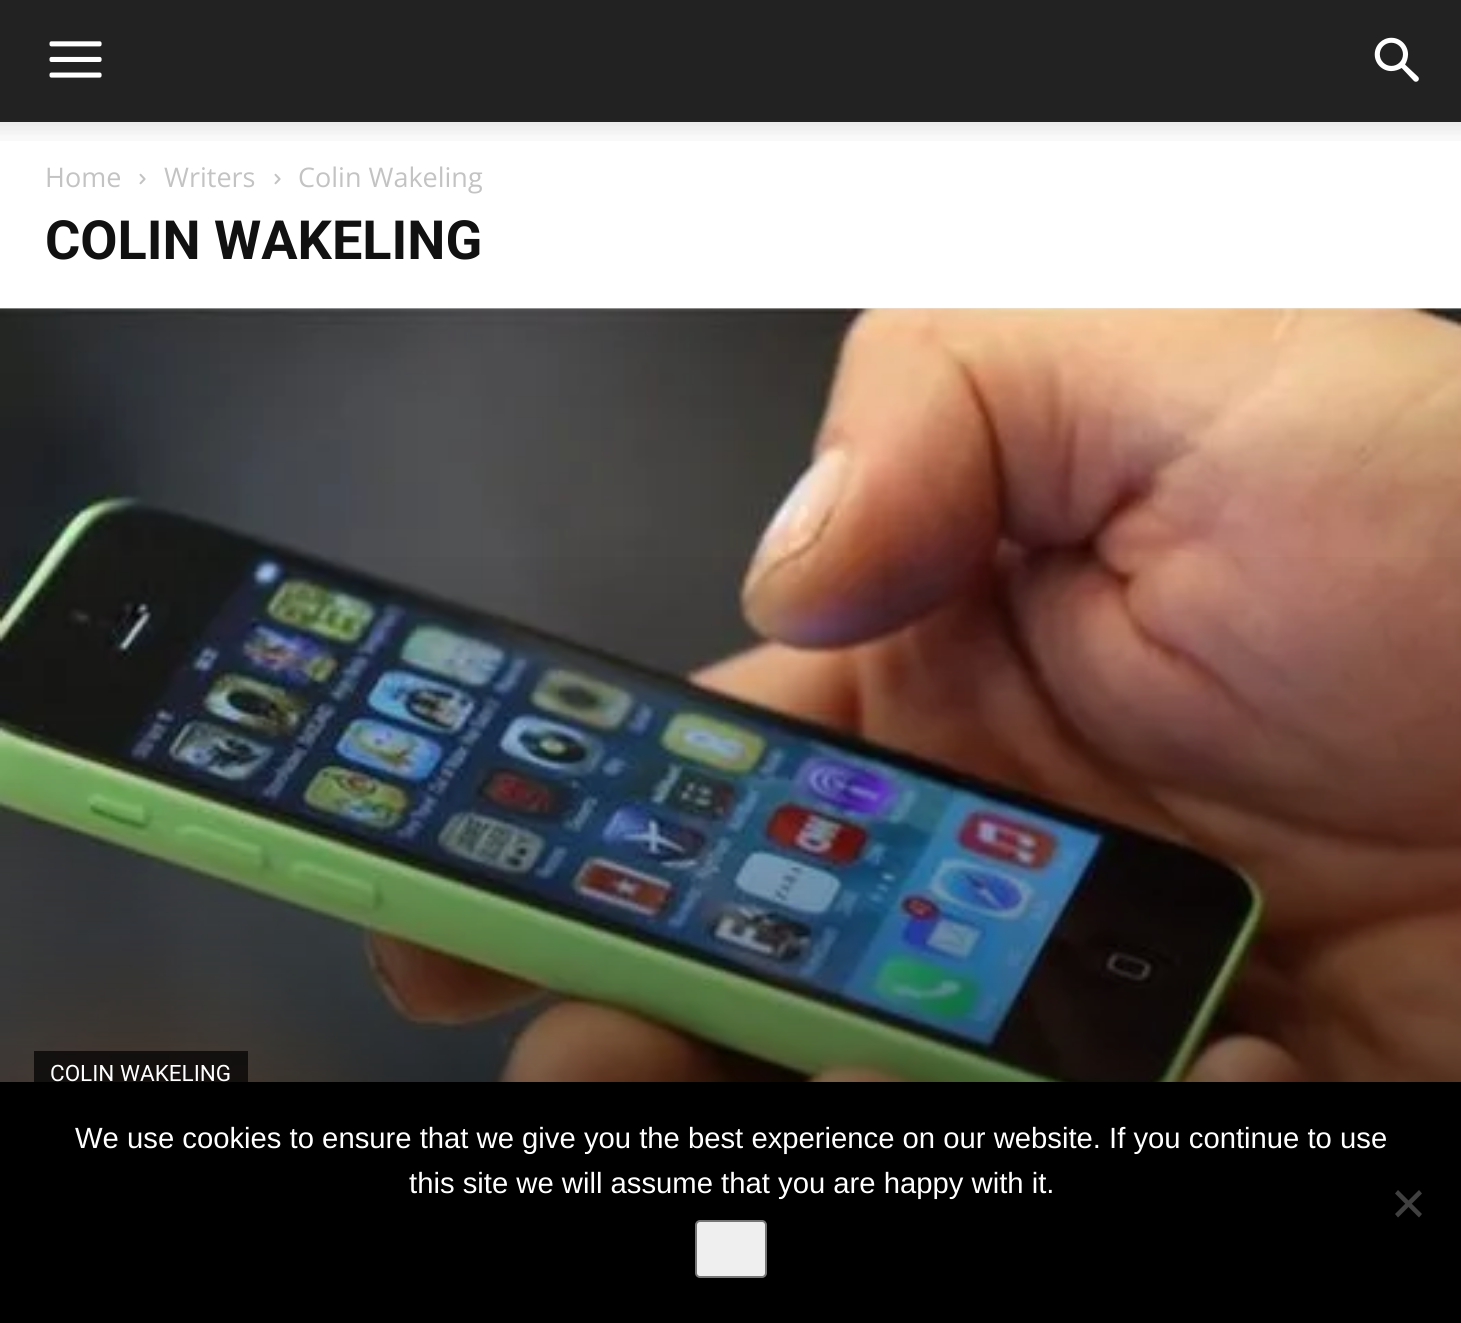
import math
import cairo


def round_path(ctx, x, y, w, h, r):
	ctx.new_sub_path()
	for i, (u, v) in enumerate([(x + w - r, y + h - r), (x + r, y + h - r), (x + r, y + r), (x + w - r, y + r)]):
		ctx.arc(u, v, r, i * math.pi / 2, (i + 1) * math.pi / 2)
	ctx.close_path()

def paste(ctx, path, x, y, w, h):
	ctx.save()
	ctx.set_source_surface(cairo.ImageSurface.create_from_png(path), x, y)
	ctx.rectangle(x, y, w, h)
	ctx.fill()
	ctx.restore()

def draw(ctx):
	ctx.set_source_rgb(1, 1, 1)
	ctx.paint()
	ctx.set_source_rgb(0.133, 0.133, 0.133)
	ctx.rectangle(0, 0, 1461, 122)
	ctx.fill()
	paste(ctx, 'media/1.png', 49, 41, 53, 37)
	paste(ctx, 'media/2.png', 1374, 37, 45, 45)
	paste(ctx, 'media/3.png', 0, 122, 1461, 19)
	ctx.select_font_face('Open Sans')
	ctx.set_font_size(27)
	ctx.set_source_rgb(0.765, 0.765, 0.765)
	ctx.move_to(45, 187)
	ctx.show_text('Home')
	paste(ctx, 'media/4.png', 139, 173, 7, 12)
	ctx.move_to(164, 187)
	ctx.show_text('Writers')
	paste(ctx, 'media/4.png', 274, 173, 7, 12)
	ctx.move_to(298, 187)
	ctx.show_text('Colin Wakeling')
	ctx.select_font_face('Roboto', cairo.FONT_SLANT_NORMAL, cairo.FONT_WEIGHT_BOLD)
	ctx.set_font_size(54)
	ctx.set_source_rgb(0.067, 0.067, 0.067)
	ctx.move_to(45, 259)
	ctx.show_text('COLIN WAKELING')
	ctx.set_source_rgb(0.898, 0.898, 0.898)
	ctx.rectangle(0, 308, 1461, 1)
	ctx.fill()
	paste(ctx, 'media/5.png', 0, 308, 1461, 774)
	gradient = cairo.LinearGradient(731, 4.5, 731, 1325)
	gradient.add_color_stop_rgba(0.4, 0, 0, 0, 0)
	gradient.add_color_stop_rgba(1, 0, 0, 0, 0.7)
	ctx.set_source(gradient)
	ctx.rectangle(0, 557, 1461, 525)
	ctx.fill()
	ctx.set_source_rgba(0, 0, 0, 0.7)
	ctx.rectangle(34, 1051, 214, 31)
	ctx.fill()
	ctx.select_font_face('Roboto')
	ctx.set_font_size(22.5)
	ctx.set_source_rgb(1, 1, 1)
	ctx.move_to(50, 1081)
	ctx.show_text('COLIN WAKELING')
	ctx.set_source_rgb(0, 0, 0)
	ctx.rectangle(0, 1082, 1461, 241)
	ctx.fill()
	ctx.select_font_face('Liberation Sans')
	ctx.set_font_size(29.25)
	ctx.set_source_rgb(1, 1, 1)
	ctx.move_to(75, 1148)
	ctx.show_text('We use cookies to ensure that we give you the best experience on our website. If you continue to use')
	ctx.move_to(409, 1193)
	ctx.show_text('this site we will assume that you are happy with it.')
	ctx.set_source_rgb(0.251, 0.251, 0.251)
	ctx.new_path()
	ctx.move_to(1419, 1190)
	ctx.line_to(1422, 1193.5)
	ctx.line_to(1398, 1217.5)
	ctx.line_to(1395, 1214)
	ctx.close_path()
	ctx.fill()
	ctx.new_path()
	ctx.move_to(1395, 1193.5)
	ctx.line_to(1398, 1190)
	ctx.line_to(1422, 1214)
	ctx.line_to(1419, 1217.5)
	ctx.close_path()
	ctx.fill()
	ctx.set_source_rgb(0.937, 0.937, 0.937)
	round_path(ctx, 696, 1221, 70, 56, 4)
	ctx.fill_preserve()
	ctx.set_source_rgb(0.463, 0.463, 0.463)
	ctx.stroke()


surface = cairo.ImageSurface(cairo.FORMAT_RGB24, 1461, 1323)
ctx = cairo.Context(surface)
options = cairo.FontOptions()
options.set_hint_metrics(cairo.HINT_METRICS_OFF)
options.set_hint_style(cairo.HINT_STYLE_NONE)
ctx.set_font_options(options)
ctx.set_miter_limit(4)
draw(ctx)
surface.write_to_png('image.png')
